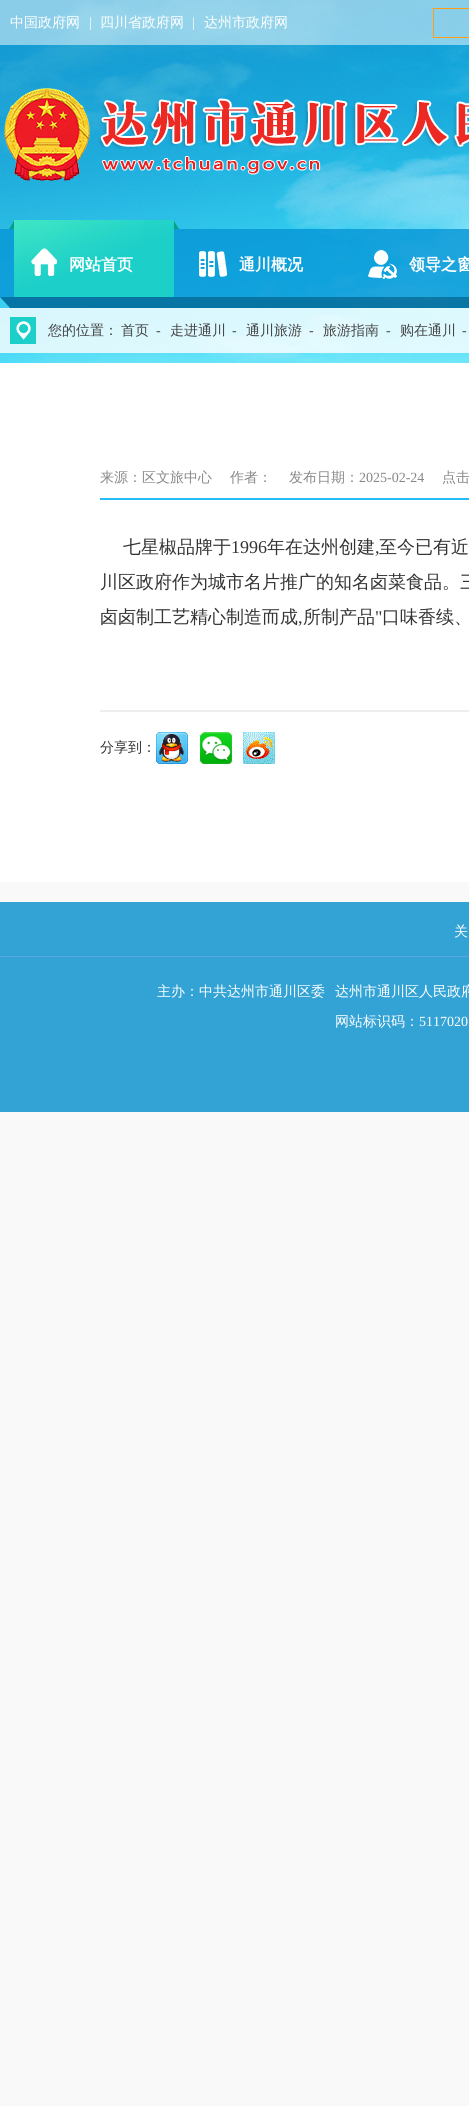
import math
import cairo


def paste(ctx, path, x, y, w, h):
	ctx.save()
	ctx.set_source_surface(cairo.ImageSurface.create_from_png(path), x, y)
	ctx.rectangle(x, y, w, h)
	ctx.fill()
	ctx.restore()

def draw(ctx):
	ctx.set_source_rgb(0.976, 0.976, 0.976)
	ctx.paint()
	paste(ctx, 'media/1.png', 0, 0, 469, 363)
	ctx.set_source_rgba(1, 1, 1, 0.5)
	ctx.rectangle(0, 0, 469, 45)
	ctx.fill()
	ctx.select_font_face('WenQuanYi Zen Hei Medium')
	ctx.set_font_size(14)
	ctx.set_source_rgb(1, 1, 1)
	ctx.move_to(10, 27)
	ctx.show_text('中国政府网')
	ctx.select_font_face('Liberation Serif')
	ctx.move_to(89, 27)
	ctx.show_text('|')
	ctx.select_font_face('WenQuanYi Zen Hei Medium')
	ctx.move_to(100, 27)
	ctx.show_text('四川省政府网')
	ctx.select_font_face('Liberation Serif')
	ctx.move_to(192, 27)
	ctx.show_text('|')
	ctx.select_font_face('WenQuanYi Zen Hei Medium')
	ctx.move_to(204, 27)
	ctx.show_text('达州市政府网')
	ctx.rectangle(433.5, 8.5, 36, 29)
	ctx.set_source_rgb(1, 0.62, 0.075)
	ctx.set_line_width(1)
	ctx.stroke()
	paste(ctx, 'media/2.png', 4, 88, 465, 93)
	paste(ctx, 'media/3.png', 0, 229, 469, 79)
	paste(ctx, 'media/4.png', 9, 220, 170, 77)
	paste(ctx, 'media/5.png', 31, 248, 26, 28)
	ctx.select_font_face('WenQuanYi Zen Hei', cairo.FONT_SLANT_NORMAL, cairo.FONT_WEIGHT_BOLD)
	ctx.set_font_size(16)
	ctx.set_source_rgb(1, 1, 1)
	ctx.move_to(69, 270)
	ctx.show_text('网站首页')
	paste(ctx, 'media/6.png', 199, 251, 28, 26)
	ctx.move_to(239, 270)
	ctx.show_text('通川概况')
	paste(ctx, 'media/7.png', 368, 250, 29, 29)
	ctx.move_to(409, 270)
	ctx.show_text('领导之窗')
	ctx.set_source_rgba(1, 1, 1, 0.8)
	ctx.rectangle(0, 308, 469, 45)
	ctx.fill()
	paste(ctx, 'media/8.png', 10, 317, 26, 27)
	ctx.select_font_face('WenQuanYi Zen Hei Medium')
	ctx.set_font_size(14)
	ctx.set_source_rgb(0.267, 0.267, 0.267)
	ctx.move_to(48, 335)
	ctx.show_text('您的位置：')
	ctx.move_to(121, 335)
	ctx.show_text('首页')
	ctx.select_font_face('Liberation Serif')
	ctx.move_to(156, 335)
	ctx.show_text('-')
	ctx.select_font_face('WenQuanYi Zen Hei Medium')
	ctx.move_to(170, 335)
	ctx.show_text('走进通川')
	ctx.select_font_face('Liberation Serif')
	ctx.move_to(232, 335)
	ctx.show_text('-')
	ctx.select_font_face('WenQuanYi Zen Hei Medium')
	ctx.move_to(246, 335)
	ctx.show_text('通川旅游')
	ctx.select_font_face('Liberation Serif')
	ctx.move_to(309, 335)
	ctx.show_text('-')
	ctx.select_font_face('WenQuanYi Zen Hei Medium')
	ctx.move_to(323, 335)
	ctx.show_text('旅游指南')
	ctx.select_font_face('Liberation Serif')
	ctx.move_to(386, 335)
	ctx.show_text('-')
	ctx.select_font_face('WenQuanYi Zen Hei Medium')
	ctx.move_to(400, 335)
	ctx.show_text('购在通川')
	ctx.select_font_face('Liberation Serif')
	ctx.move_to(462, 335)
	ctx.show_text('-')
	ctx.set_source_rgb(1, 1, 1)
	ctx.rectangle(0, 363, 469, 519)
	ctx.fill()
	ctx.set_source_rgb(0.141, 0.741, 0.961)
	ctx.rectangle(100, 498, 369, 2)
	ctx.fill()
	ctx.select_font_face('WenQuanYi Zen Hei Medium')
	ctx.set_source_rgb(0.533, 0.533, 0.533)
	for x, y, s in [
		(100, 482, '来源：区文旅中心'),
		(230, 482, '作者：'),
		(289, 482, '发布日期：'),
	]:
		ctx.move_to(x, y)
		ctx.show_text(s)
	ctx.select_font_face('Liberation Serif')
	ctx.move_to(359, 482)
	ctx.show_text('2025-02-24')
	ctx.select_font_face('WenQuanYi Zen Hei Medium')
	ctx.move_to(442, 482)
	ctx.show_text('点击')
	ctx.set_font_size(18)
	ctx.set_source_rgb(0.2, 0.2, 0.2)
	ctx.move_to(123, 553)
	ctx.show_text('七星椒品牌于')
	ctx.select_font_face('Liberation Serif')
	ctx.move_to(231, 553)
	ctx.show_text('1996')
	ctx.select_font_face('WenQuanYi Zen Hei Medium')
	ctx.move_to(267, 553)
	ctx.show_text('年在达州创建')
	ctx.select_font_face('Liberation Serif')
	ctx.move_to(375, 553)
	ctx.show_text(',')
	ctx.select_font_face('WenQuanYi Zen Hei Medium')
	for x, y, s in [
		(379, 553, '至今已有近'),
		(100, 588, '川区政府作为城市名片推广的知名卤菜食品。三'),
		(100, 623, '卤卤制工艺精心制造而成'),
		(303, 623, '所制产品'),
	]:
		ctx.move_to(x, y)
		ctx.show_text(s)
	ctx.select_font_face('Liberation Serif')
	ctx.move_to(375, 623)
	ctx.show_text('"')
	ctx.select_font_face('WenQuanYi Zen Hei Medium')
	ctx.move_to(382, 623)
	ctx.show_text('口味香续、')
	ctx.select_font_face('Liberation Serif')
	ctx.move_to(298, 623)
	ctx.show_text(',')
	ctx.set_source_rgb(0.933, 0.933, 0.933)
	ctx.rectangle(100, 710, 369, 2)
	ctx.fill()
	ctx.select_font_face('WenQuanYi Zen Hei Medium')
	ctx.set_font_size(14)
	ctx.set_source_rgb(0.2, 0.2, 0.2)
	ctx.move_to(100, 752)
	ctx.show_text('分享到：')
	paste(ctx, 'media/9.png', 156, 732, 32, 32)
	paste(ctx, 'media/10.png', 200, 732, 32, 32)
	paste(ctx, 'media/11.png', 243, 732, 32, 32)
	ctx.set_source_rgb(0.2, 0.639, 0.839)
	ctx.rectangle(0, 902, 469, 210)
	ctx.fill()
	ctx.set_source_rgb(0.349, 0.651, 0.902)
	ctx.rectangle(0, 956, 469, 1)
	ctx.fill()
	ctx.set_source_rgb(1, 1, 1)
	for x, y, s in [
		(454, 936, '关'),
		(157, 996, '主办：中共达州市通川区委'),
		(335, 996, '达州市通川区人民政府'),
		(335, 1026, '网站标识码：'),
	]:
		ctx.move_to(x, y)
		ctx.show_text(s)
	ctx.select_font_face('Liberation Serif')
	ctx.move_to(419, 1026)
	ctx.show_text('5117020')


surface = cairo.ImageSurface(cairo.FORMAT_RGB24, 469, 2106)
ctx = cairo.Context(surface)
options = cairo.FontOptions()
options.set_hint_metrics(cairo.HINT_METRICS_OFF)
options.set_hint_style(cairo.HINT_STYLE_NONE)
ctx.set_font_options(options)
ctx.set_miter_limit(4)
draw(ctx)
surface.write_to_png('image.png')
